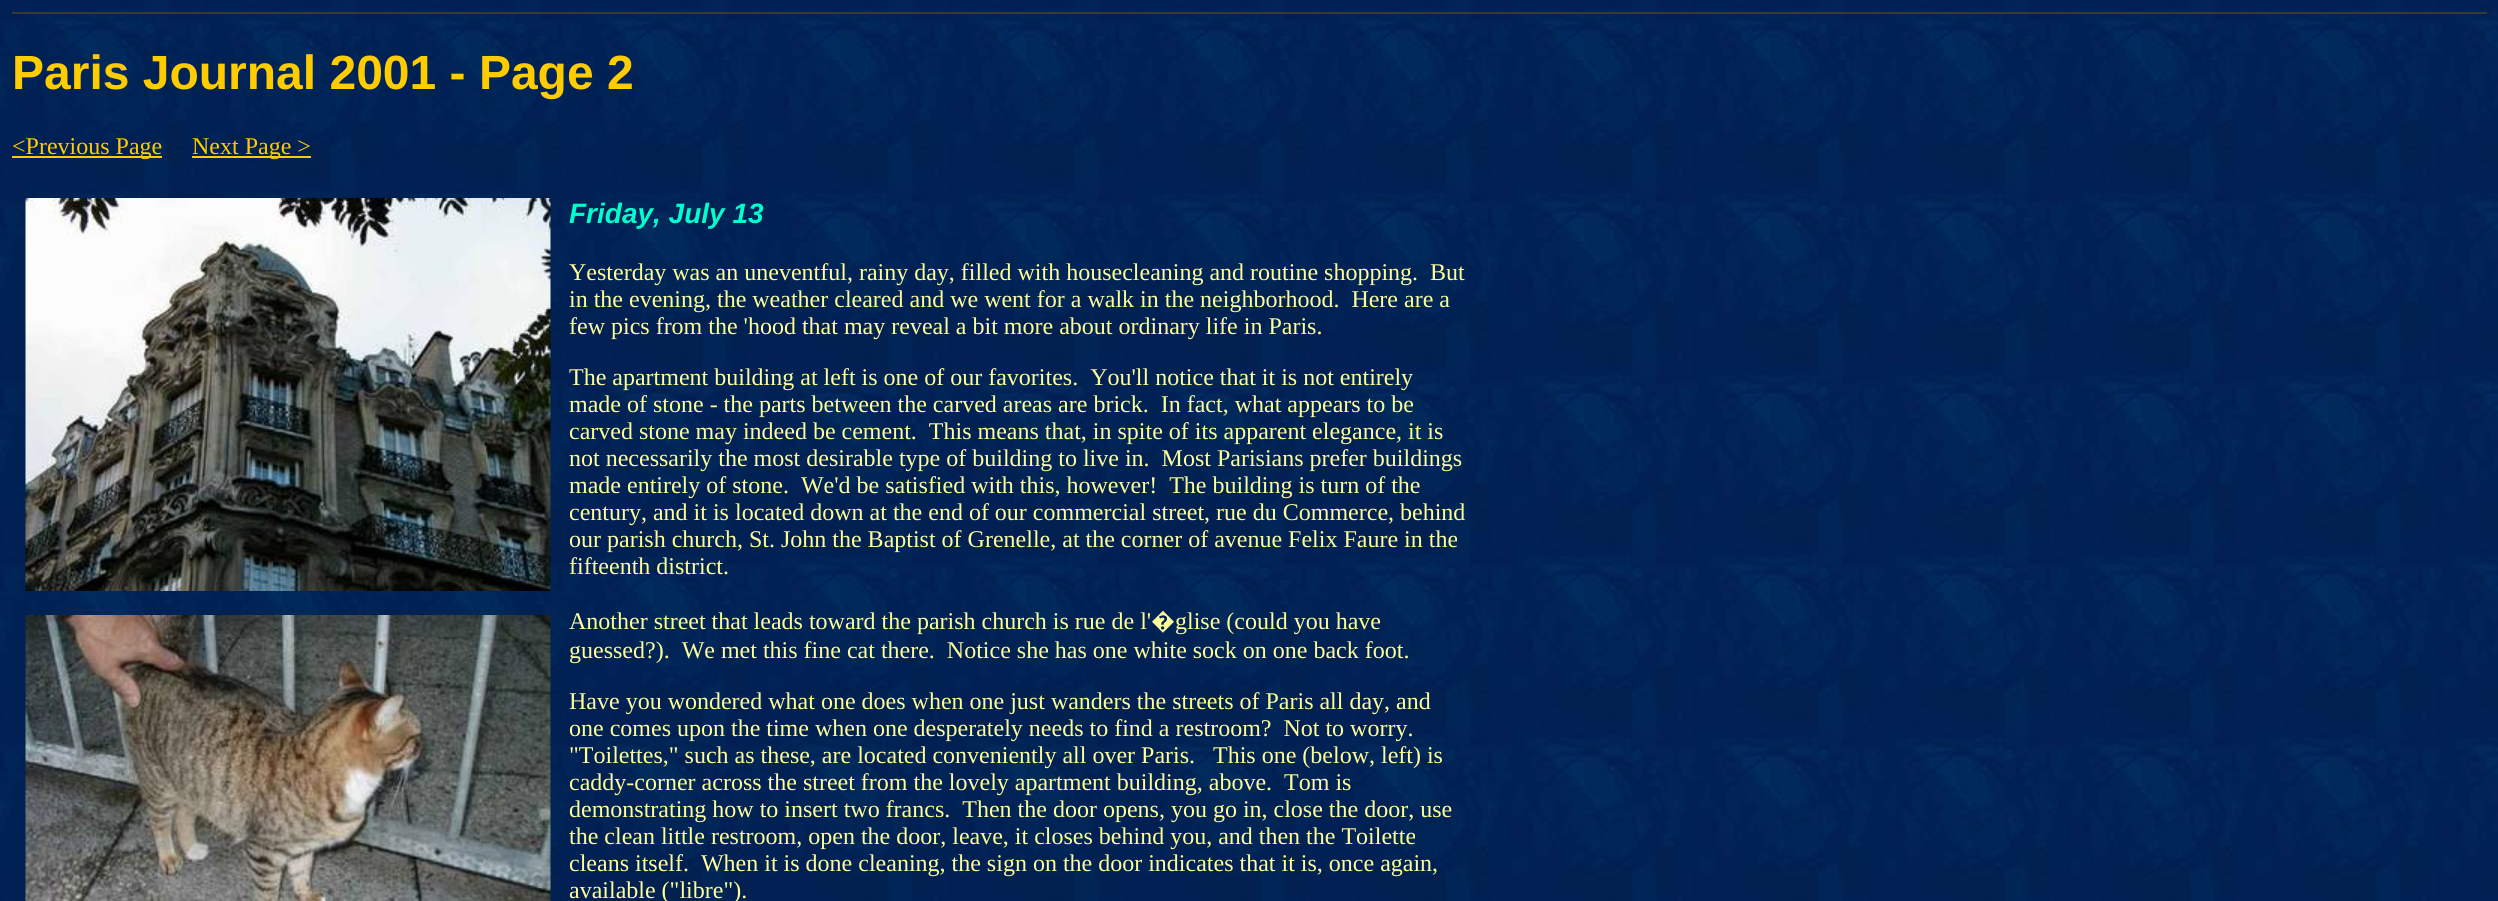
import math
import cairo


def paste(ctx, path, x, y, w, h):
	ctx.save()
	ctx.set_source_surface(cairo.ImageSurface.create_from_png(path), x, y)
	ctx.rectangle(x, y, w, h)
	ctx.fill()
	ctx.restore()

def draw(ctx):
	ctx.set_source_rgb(1, 1, 1)
	ctx.paint()
	paste(ctx, 'media/1.png', 0, 0, 2498, 901)
	ctx.set_source_rgb(0.224, 0.224, 0.224)
	ctx.rectangle(12, 12, 2475, 2)
	ctx.fill()
	ctx.select_font_face('Liberation Sans', cairo.FONT_SLANT_NORMAL, cairo.FONT_WEIGHT_BOLD)
	ctx.set_font_size(48)
	ctx.set_source_rgb(1, 0.8, 0)
	ctx.move_to(12, 89)
	ctx.show_text('Paris Journal 2001 - Page 2')
	ctx.rectangle(12, 156, 150, 2)
	ctx.fill()
	ctx.select_font_face('Liberation Serif')
	ctx.set_font_size(24)
	ctx.move_to(12, 154)
	ctx.show_text('<Previous Page')
	ctx.rectangle(192, 156, 119, 2)
	ctx.fill()
	ctx.move_to(192, 154)
	ctx.show_text('Next Page >')
	paste(ctx, 'media/2.png', 25, 198, 526, 393)
	paste(ctx, 'media/3.png', 25, 615, 526, 286)
	ctx.select_font_face('Liberation Sans', cairo.FONT_SLANT_ITALIC, cairo.FONT_WEIGHT_BOLD)
	ctx.set_font_size(28)
	ctx.set_source_rgb(0, 1, 0.8)
	ctx.move_to(569, 223)
	ctx.show_text('Friday, July 13')
	ctx.select_font_face('Liberation Serif')
	ctx.set_font_size(24)
	ctx.set_source_rgb(1, 1, 0.6)
	for x, y, s in [
		(569, 280, 'Yesterday was an uneventful, rainy day, filled with housecleaning and routine shopping.  But'),
		(569, 307, 'in the evening, the weather cleared and we went for a walk in the neighborhood.  Here are a'),
		(569, 334, 'few pics from the \'hood that may reveal a bit more about ordinary life in Paris.'),
		(569, 385, 'The apartment building at left is one of our favorites.  You\'ll notice that it is not entirely'),
		(569, 412, 'made of stone - the parts between the carved areas are brick.  In fact, what appears to be'),
		(569, 439, 'carved stone may indeed be cement.  This means that, in spite of its apparent elegance, it is'),
		(569, 466, 'not necessarily the most desirable type of building to live in.  Most Parisians prefer buildings'),
		(569, 493, 'made entirely of stone.  We\'d be satisfied with this, however!  The building is turn of the'),
		(569, 520, 'century, and it is located down at the end of our commercial street, rue du Commerce, behind'),
		(569, 547, 'our parish church, St. John the Baptist of Grenelle, at the corner of avenue Felix Faure in the'),
		(569, 574, 'fifteenth district.'),
		(569, 629, 'Another street that leads toward the parish church is rue de l\''),
	]:
		ctx.move_to(x, y)
		ctx.show_text(s)
	ctx.select_font_face('Noto Sans')
	ctx.move_to(1151, 629)
	ctx.show_text('�')
	ctx.select_font_face('Liberation Serif')
	for x, y, s in [
		(1175, 629, 'glise (could you have'),
		(569, 658, 'guessed?).  We met this fine cat there.  Notice she has one white sock on one back foot.'),
		(569, 709, 'Have you wondered what one does when one just wanders the streets of Paris all day, and'),
		(569, 736, 'one comes upon the time when one desperately needs to find a restroom?  Not to worry.'),
		(569, 763, '"Toilettes," such as these, are located conveniently all over Paris.'),
		(1213, 763, 'This one (below, left) is'),
		(569, 790, 'caddy-corner across the street from the lovely apartment building, above.  Tom is'),
		(569, 817, 'demonstrating how to insert two francs.  Then the door opens, you go in, close the door, use'),
		(569, 844, 'the clean little restroom, open the door, leave, it closes behind you, and then the Toilette'),
		(569, 871, 'cleans itself.  When it is done cleaning, the sign on the door indicates that it is, once again,'),
		(569, 898, 'available ("libre").'),
	]:
		ctx.move_to(x, y)
		ctx.show_text(s)


surface = cairo.ImageSurface(cairo.FORMAT_RGB24, 2498, 901)
ctx = cairo.Context(surface)
options = cairo.FontOptions()
options.set_hint_metrics(cairo.HINT_METRICS_OFF)
options.set_hint_style(cairo.HINT_STYLE_NONE)
ctx.set_font_options(options)
ctx.set_miter_limit(4)
draw(ctx)
surface.write_to_png('image.png')
